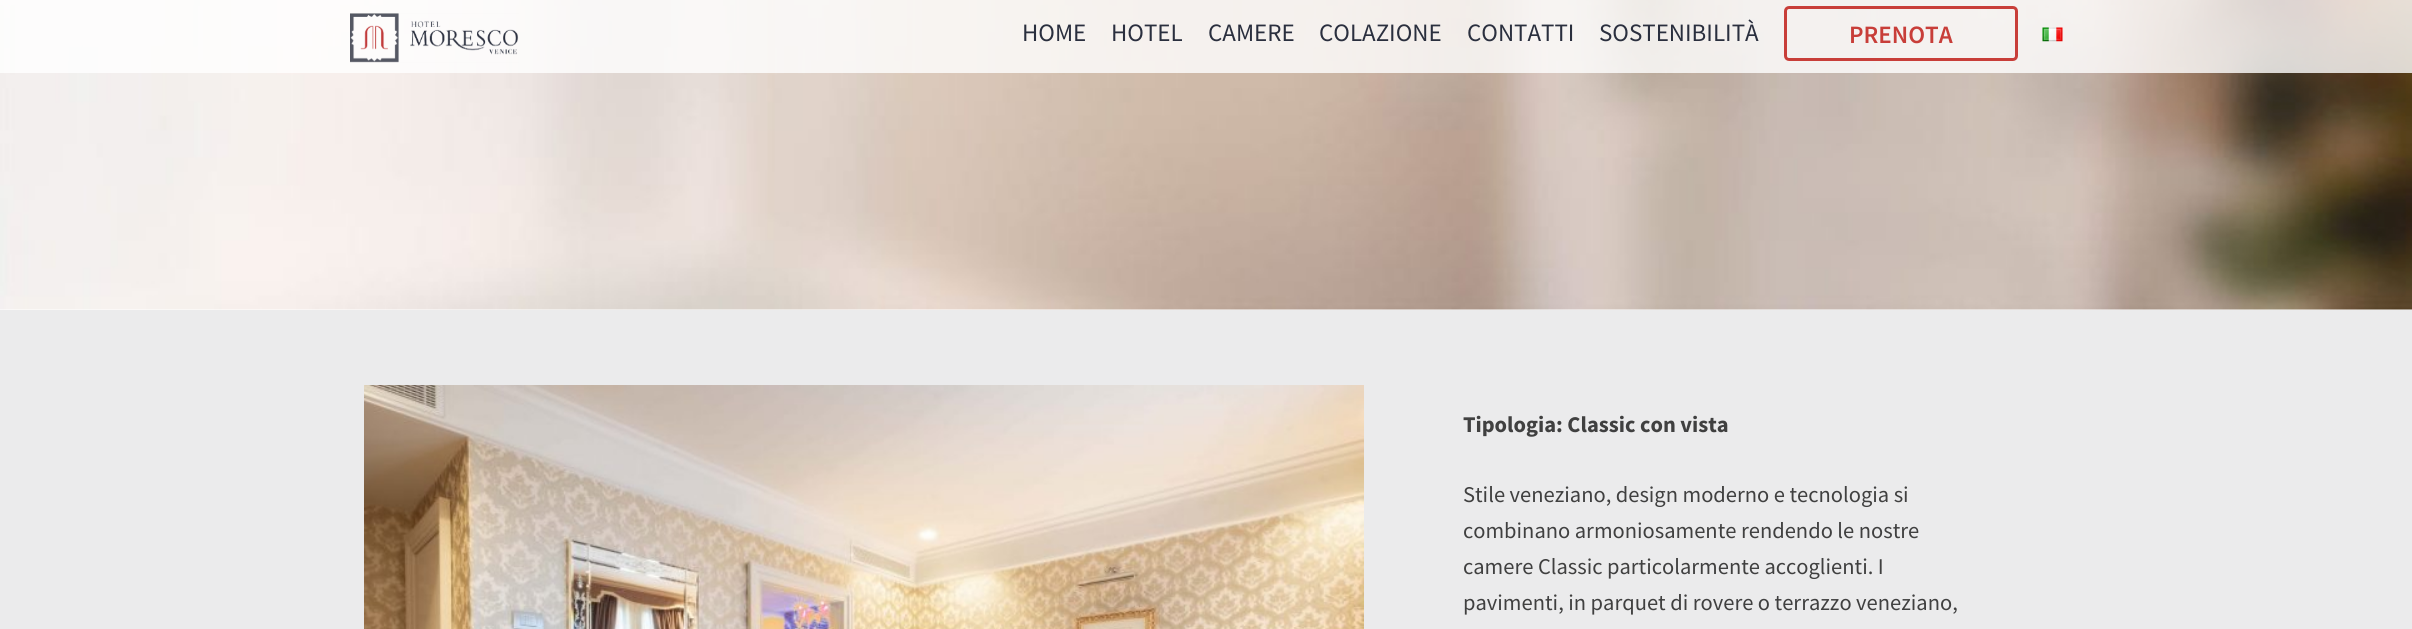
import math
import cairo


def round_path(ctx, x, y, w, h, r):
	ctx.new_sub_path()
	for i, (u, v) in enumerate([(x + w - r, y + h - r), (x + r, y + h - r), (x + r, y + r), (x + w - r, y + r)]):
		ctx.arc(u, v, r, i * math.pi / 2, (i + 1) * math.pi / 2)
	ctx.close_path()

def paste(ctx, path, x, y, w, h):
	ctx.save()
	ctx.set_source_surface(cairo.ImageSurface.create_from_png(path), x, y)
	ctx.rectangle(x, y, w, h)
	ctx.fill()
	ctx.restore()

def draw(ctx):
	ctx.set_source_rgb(1, 1, 1)
	ctx.paint()
	paste(ctx, 'media/3.png', 0, 0, 2412, 310)
	ctx.set_source_rgba(1, 1, 1, 0.8)
	ctx.rectangle(0, 0, 2412, 73)
	ctx.fill()
	paste(ctx, 'media/1.png', 350, 13, 169, 50)
	ctx.select_font_face('Source Sans Pro')
	ctx.set_font_size(25)
	ctx.set_source_rgb(0.165, 0.184, 0.243)
	for x, y, s in [
		(1022, 41, 'HOME'),
		(1111, 41, 'HOTEL'),
		(1208, 41, 'CAMERE'),
		(1319, 41, 'COLAZIONE'),
		(1467, 41, 'CONTATTI'),
		(1599, 41, 'SOSTENIBILITÀ'),
	]:
		ctx.move_to(x, y)
		ctx.show_text(s)
	round_path(ctx, 1785.5, 7.5, 231, 52, 3.5)
	ctx.set_source_rgb(0.784, 0.243, 0.224)
	ctx.set_line_width(3)
	ctx.stroke()
	ctx.select_font_face('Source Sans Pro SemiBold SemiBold')
	ctx.move_to(1849, 43)
	ctx.show_text('PRENOTA')
	paste(ctx, 'media/2.png', 2042, 27, 21, 15)
	ctx.set_source_rgb(0.918, 0.918, 0.925)
	ctx.rectangle(0, 310, 2412, 319)
	ctx.fill()
	paste(ctx, 'media/4.png', 364, 385, 1000, 244)
	ctx.select_font_face('Source Sans Pro', cairo.FONT_SLANT_NORMAL, cairo.FONT_WEIGHT_BOLD)
	ctx.set_font_size(22.5)
	ctx.set_source_rgb(0.251, 0.251, 0.251)
	ctx.move_to(1463, 432)
	ctx.show_text('Tipologia: Classic con vista')
	ctx.select_font_face('Source Sans Pro')
	for x, y, s in [
		(1463, 502, 'Stile veneziano, design moderno e tecnologia si'),
		(1463, 538, 'combinano armoniosamente rendendo le nostre'),
		(1463, 574, 'camere Classic particolarmente accoglienti. I'),
		(1463, 610, 'pavimenti, in parquet di rovere o terrazzo veneziano,'),
	]:
		ctx.move_to(x, y)
		ctx.show_text(s)


surface = cairo.ImageSurface(cairo.FORMAT_RGB24, 2412, 629)
ctx = cairo.Context(surface)
options = cairo.FontOptions()
options.set_hint_metrics(cairo.HINT_METRICS_OFF)
options.set_hint_style(cairo.HINT_STYLE_NONE)
ctx.set_font_options(options)
ctx.set_miter_limit(4)
draw(ctx)
surface.write_to_png('image.png')
